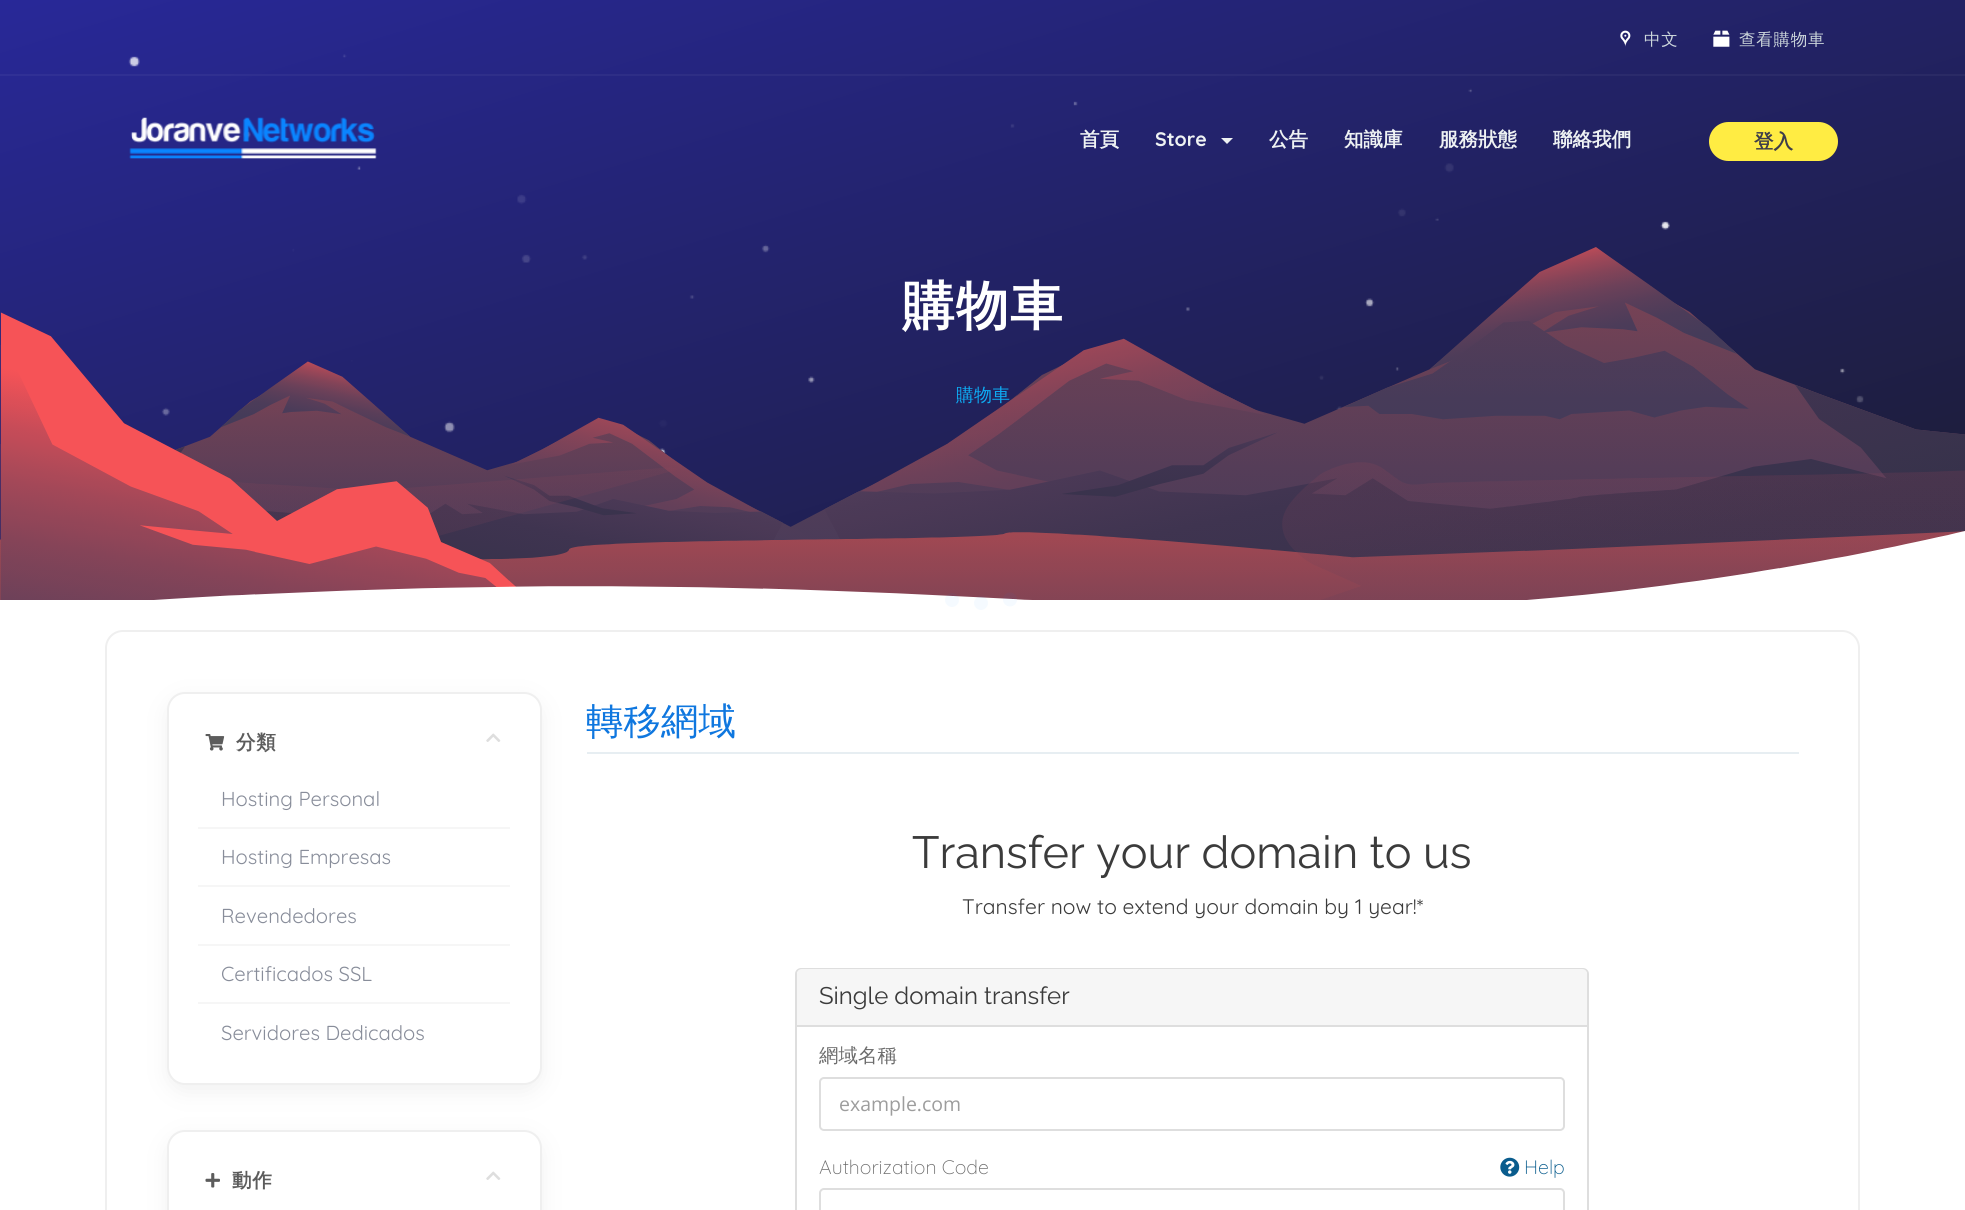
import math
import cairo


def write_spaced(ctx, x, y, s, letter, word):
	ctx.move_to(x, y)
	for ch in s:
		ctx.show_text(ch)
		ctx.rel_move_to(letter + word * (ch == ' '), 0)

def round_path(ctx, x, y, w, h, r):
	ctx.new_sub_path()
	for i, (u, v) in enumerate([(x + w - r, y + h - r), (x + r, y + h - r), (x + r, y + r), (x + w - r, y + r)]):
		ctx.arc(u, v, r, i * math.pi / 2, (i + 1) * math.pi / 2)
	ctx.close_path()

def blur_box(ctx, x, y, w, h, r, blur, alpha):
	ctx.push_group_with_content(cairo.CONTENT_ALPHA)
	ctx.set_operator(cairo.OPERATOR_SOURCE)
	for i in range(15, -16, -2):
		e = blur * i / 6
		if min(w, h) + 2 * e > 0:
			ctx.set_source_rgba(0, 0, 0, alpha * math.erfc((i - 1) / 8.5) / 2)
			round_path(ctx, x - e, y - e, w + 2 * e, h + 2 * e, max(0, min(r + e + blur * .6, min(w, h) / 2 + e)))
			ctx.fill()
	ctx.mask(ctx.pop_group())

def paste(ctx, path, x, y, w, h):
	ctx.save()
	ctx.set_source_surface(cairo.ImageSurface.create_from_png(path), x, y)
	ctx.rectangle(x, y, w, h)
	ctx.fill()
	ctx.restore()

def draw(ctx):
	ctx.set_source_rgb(1, 1, 1)
	ctx.paint()
	gradient = cairo.LinearGradient(815, -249, 1150, 849)
	gradient.add_color_stop_rgba(0, 0.157, 0.157, 0.596, 1)
	gradient.add_color_stop_rgba(1, 0.11, 0.11, 0.188, 1)
	ctx.set_source(gradient)
	ctx.rectangle(0, 0, 1965, 540)
	ctx.fill()
	gradient = cairo.LinearGradient(815, -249, 1150, 849)
	gradient.add_color_stop_rgba(0, 0.192, 0.192, 0.612, 1)
	gradient.add_color_stop_rgba(1, 0.145, 0.145, 0.22, 1)
	ctx.set_source(gradient)
	ctx.rectangle(0, 74, 1965, 2)
	ctx.fill()
	paste(ctx, 'media/1.png', 1620, 30, 11, 17)
	ctx.select_font_face('WenQuanYi Zen Hei Medium')
	ctx.set_font_size(16.5)
	ctx.set_source_rgb(0.8, 0.839, 0.859)
	write_spaced(ctx, 1644, 45, '中文', 0.75, 0)
	paste(ctx, 'media/2.png', 1713, 30, 17, 17)
	write_spaced(ctx, 1739, 45, '查看購物車', 0.75, 0)
	paste(ctx, 'media/3.png', 128, 54, 1736, 399)
	paste(ctx, 'media/4.png', 0, 247, 1965, 353)
	paste(ctx, 'media/5.png', 154, 531, 1811, 69)
	paste(ctx, 'media/6.png', 129, 117, 248, 42)
	ctx.select_font_face('WenQuanYi Zen Hei', cairo.FONT_SLANT_NORMAL, cairo.FONT_WEIGHT_BOLD)
	ctx.set_font_size(19.5)
	ctx.set_source_rgb(0.933, 0.949, 0.953)
	ctx.move_to(1080, 146)
	ctx.show_text('首頁')
	ctx.select_font_face('Quicksand', cairo.FONT_SLANT_NORMAL, cairo.FONT_WEIGHT_BOLD)
	ctx.move_to(1155, 146)
	ctx.show_text('Store')
	ctx.new_path()
	ctx.move_to(1221, 138)
	ctx.line_to(1233, 138)
	ctx.line_to(1227, 144)
	ctx.close_path()
	ctx.fill()
	ctx.select_font_face('WenQuanYi Zen Hei', cairo.FONT_SLANT_NORMAL, cairo.FONT_WEIGHT_BOLD)
	for x, y, s in [
		(1269, 146, '公告'),
		(1344, 146, '知識庫'),
		(1439, 146, '服務狀態'),
		(1553, 146, '聯絡我們'),
	]:
		ctx.move_to(x, y)
		ctx.show_text(s)
	ctx.set_source_rgb(1, 0.925, 0.263)
	round_path(ctx, 1709, 122, 129, 39, 19.5)
	ctx.fill()
	ctx.set_source_rgb(0.243, 0.239, 0.29)
	ctx.move_to(1754, 148)
	ctx.show_text('登入')
	ctx.set_font_size(52.5)
	ctx.set_source_rgb(1, 1, 1)
	write_spaced(ctx, 902, 324, '購物車', 1.5, 0)
	ctx.select_font_face('WenQuanYi Zen Hei Medium')
	ctx.set_font_size(18)
	ctx.set_source_rgb(0.051, 0.675, 0.957)
	ctx.move_to(956, 401)
	ctx.show_text('購物車')
	ctx.set_source_rgba(0, 0.502, 1, 0.04)
	ctx.new_path()
	ctx.arc(952, 600, 7, 0, 2 * math.pi)
	ctx.fill()
	ctx.arc(981, 603, 7, 0, 2 * math.pi)
	ctx.fill()
	ctx.arc(1010, 599.5, 7, 0, 2 * math.pi)
	ctx.fill()
	round_path(ctx, 106, 631, 1753, 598, 17)
	ctx.set_source_rgb(0.937, 0.937, 0.937)
	ctx.stroke()
	ctx.set_source_rgb(0.906, 0.933, 0.949)
	ctx.rectangle(587, 752, 1212, 2)
	ctx.fill()
	ctx.set_font_size(37.5)
	ctx.set_source_rgb(0.059, 0.467, 0.875)
	ctx.move_to(586, 734)
	ctx.show_text('轉移網域')
	ctx.set_source_rgb(0.455, 0.455, 0.455)
	blur_box(ctx, 167, 699, 375, 393, 18, 11, 0.1)
	ctx.set_source_rgb(1, 1, 1)
	round_path(ctx, 168, 693, 373, 391, 17)
	ctx.fill_preserve()
	ctx.set_source_rgb(0.937, 0.937, 0.937)
	ctx.stroke()
	paste(ctx, 'media/7.png', 205, 734, 20, 17)
	ctx.select_font_face('WenQuanYi Zen Hei', cairo.FONT_SLANT_NORMAL, cairo.FONT_WEIGHT_BOLD)
	ctx.set_font_size(19.5)
	ctx.set_source_rgb(0.361, 0.361, 0.361)
	write_spaced(ctx, 236, 749, '分類', 0.75, 0)
	paste(ctx, 'media/8.png', 486, 733, 15, 9)
	ctx.select_font_face('Quicksand')
	ctx.set_font_size(20.25)
	ctx.set_source_rgb(0.533, 0.553, 0.604)
	ctx.move_to(221, 806)
	ctx.show_text('Hosting Personal')
	ctx.set_source_rgb(0.961, 0.961, 0.961)
	ctx.rectangle(198, 827, 312, 2)
	ctx.fill()
	ctx.rectangle(198, 885, 312, 2)
	ctx.fill()
	ctx.set_source_rgb(0.533, 0.553, 0.604)
	ctx.move_to(221, 864)
	ctx.show_text('Hosting Empresas')
	ctx.move_to(221, 923)
	ctx.show_text('Revendedores')
	ctx.set_source_rgb(0.961, 0.961, 0.961)
	ctx.rectangle(198, 944, 312, 2)
	ctx.fill()
	ctx.set_source_rgb(0.533, 0.553, 0.604)
	ctx.move_to(221, 981)
	ctx.show_text('Certificados SSL')
	ctx.set_source_rgb(0.961, 0.961, 0.961)
	ctx.rectangle(198, 1002, 312, 2)
	ctx.fill()
	ctx.set_source_rgb(0.533, 0.553, 0.604)
	ctx.move_to(221, 1040)
	ctx.show_text('Servidores Dedicados')
	ctx.set_source_rgb(0.455, 0.455, 0.455)
	blur_box(ctx, 167, 1137, 375, 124, 18, 11, 0.1)
	ctx.set_source_rgb(1, 1, 1)
	round_path(ctx, 168, 1131, 373, 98, 17)
	ctx.fill_preserve()
	ctx.set_source_rgb(0.937, 0.937, 0.937)
	ctx.stroke()
	paste(ctx, 'media/9.png', 205, 1173, 15, 15)
	ctx.select_font_face('WenQuanYi Zen Hei', cairo.FONT_SLANT_NORMAL, cairo.FONT_WEIGHT_BOLD)
	ctx.set_font_size(19.5)
	ctx.set_source_rgb(0.361, 0.361, 0.361)
	write_spaced(ctx, 232, 1187, '動作', 0.75, 0)
	paste(ctx, 'media/8.png', 486, 1171, 15, 9)
	ctx.select_font_face('Raleway')
	ctx.set_font_size(45)
	ctx.set_source_rgb(0.231, 0.231, 0.231)
	ctx.move_to(912, 868)
	ctx.show_text('Transfer your domain to us')
	ctx.select_font_face('Quicksand')
	ctx.set_font_size(21)
	ctx.move_to(962, 914)
	ctx.show_text('Transfer now to extend your domain by 1 year!*')
	round_path(ctx, 796, 969, 792, 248, 5)
	ctx.set_source_rgb(0.871, 0.871, 0.871)
	ctx.stroke()
	ctx.set_source_rgb(0.961, 0.961, 0.961)
	ctx.new_path()
	ctx.move_to(802, 969)
	ctx.line_to(1582, 969)
	ctx.curve_to(1585, 969, 1587, 971, 1587, 974)
	ctx.line_to(1587, 1026)
	ctx.line_to(797, 1026)
	ctx.line_to(797, 974)
	ctx.curve_to(797, 971, 799, 969, 802, 969)
	ctx.close_path()
	ctx.fill()
	ctx.set_source_rgb(0.871, 0.871, 0.871)
	ctx.rectangle(797, 1025, 790, 2)
	ctx.fill()
	ctx.select_font_face('Raleway')
	ctx.set_font_size(24)
	ctx.set_source_rgb(0.231, 0.231, 0.231)
	ctx.move_to(819, 1004)
	ctx.show_text('Single domain transfer')
	ctx.select_font_face('WenQuanYi Zen Hei Medium')
	ctx.set_font_size(19.5)
	ctx.set_source_rgb(0.424, 0.424, 0.424)
	ctx.move_to(819, 1062)
	ctx.show_text('網域名稱')
	round_path(ctx, 820, 1078, 744, 52, 4)
	ctx.set_source_rgb(0.871, 0.871, 0.871)
	ctx.stroke()
	ctx.select_font_face('Open Sans')
	ctx.set_source_rgb(0.616, 0.616, 0.616)
	ctx.move_to(839, 1111)
	ctx.show_text('example.com')
	ctx.select_font_face('Quicksand Light')
	ctx.set_source_rgb(0.424, 0.424, 0.424)
	ctx.move_to(819, 1174)
	ctx.show_text('Authorization Code')
	paste(ctx, 'media/10.png', 1500, 1157, 20, 20)
	ctx.set_source_rgb(0.039, 0.361, 0.553)
	ctx.move_to(1524, 1174)
	ctx.show_text('Help')
	round_path(ctx, 820, 1189, 744, 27, 4)
	ctx.set_source_rgb(0.871, 0.871, 0.871)
	ctx.stroke()


surface = cairo.ImageSurface(cairo.FORMAT_RGB24, 1965, 1210)
ctx = cairo.Context(surface)
options = cairo.FontOptions()
options.set_hint_metrics(cairo.HINT_METRICS_OFF)
options.set_hint_style(cairo.HINT_STYLE_NONE)
ctx.set_font_options(options)
ctx.set_miter_limit(4)
draw(ctx)
surface.write_to_png('image.png')
